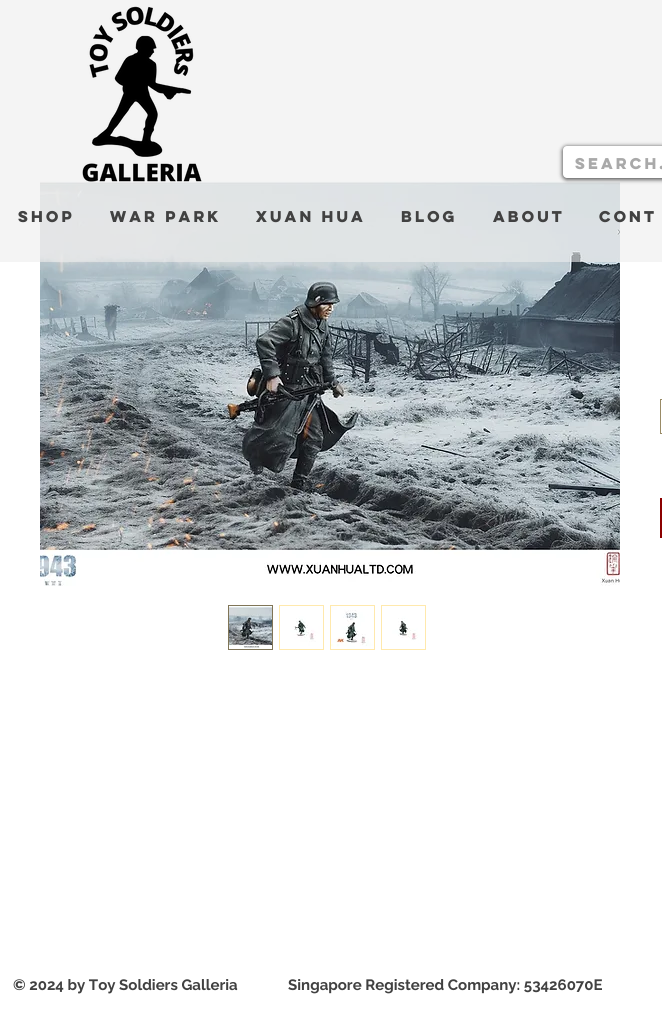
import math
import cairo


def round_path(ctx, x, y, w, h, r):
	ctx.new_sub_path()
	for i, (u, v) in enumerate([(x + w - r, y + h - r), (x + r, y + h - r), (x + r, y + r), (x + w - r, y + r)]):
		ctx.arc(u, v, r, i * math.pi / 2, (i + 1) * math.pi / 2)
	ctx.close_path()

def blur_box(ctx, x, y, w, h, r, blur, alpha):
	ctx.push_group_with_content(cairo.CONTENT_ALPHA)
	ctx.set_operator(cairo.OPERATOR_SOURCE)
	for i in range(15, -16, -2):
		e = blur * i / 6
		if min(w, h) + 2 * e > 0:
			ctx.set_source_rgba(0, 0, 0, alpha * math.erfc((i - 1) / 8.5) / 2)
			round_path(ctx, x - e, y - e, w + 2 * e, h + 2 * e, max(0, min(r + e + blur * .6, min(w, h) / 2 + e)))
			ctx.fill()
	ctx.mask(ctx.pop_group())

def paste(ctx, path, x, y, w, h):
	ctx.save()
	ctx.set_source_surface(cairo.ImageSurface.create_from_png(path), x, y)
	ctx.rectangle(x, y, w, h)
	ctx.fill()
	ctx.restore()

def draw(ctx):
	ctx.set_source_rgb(1, 1, 1)
	ctx.paint()
	paste(ctx, 'media/2.png', 40, 181, 580, 405)
	ctx.set_source_rgba(1, 1, 1, 0.49)
	ctx.rectangle(40, 181, 580, 81)
	ctx.fill()
	ctx.set_source_rgba(0.8, 0.8, 0.8, 0.22)
	ctx.rectangle(0, 0, 662, 262)
	ctx.fill()
	paste(ctx, 'media/1.png', 82, 6, 120, 176)
	ctx.set_source_rgb(0, 0, 0)
	blur_box(ctx, 562, 146, 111, 34, 5, 2, 0.6)
	ctx.set_source_rgb(1, 1, 1)
	round_path(ctx, 563, 146, 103, 32, 4)
	ctx.fill()
	ctx.select_font_face('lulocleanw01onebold', cairo.FONT_SLANT_NORMAL, cairo.FONT_WEIGHT_BOLD)
	ctx.set_font_size(14)
	ctx.set_source_rgb(0.663, 0.663, 0.663)
	ctx.move_to(575, 169)
	ctx.show_text('Search.')
	ctx.set_source_rgb(0.255, 0.255, 0.255)
	for x, y, s in [
		(18, 222, 'Shop'),
		(110, 222, 'War Park'),
		(256, 222, 'Xuan Hua'),
		(401, 222, 'Blog'),
		(493, 222, 'About'),
		(599, 222, 'Cont'),
	]:
		ctx.move_to(x, y)
		ctx.show_text(s)
	ctx.rectangle(228.5, 605.5, 44, 44)
	ctx.set_source_rgb(0.502, 0.459, 0.341)
	ctx.set_line_width(1)
	ctx.stroke()
	paste(ctx, 'media/3.png', 229, 606, 43, 43)
	ctx.set_source_rgb(1, 0.914, 0.678)
	ctx.rectangle(279, 605, 45, 45)
	ctx.fill()
	paste(ctx, 'media/4.png', 280, 606, 43, 43)
	ctx.rectangle(330, 605, 45, 45)
	ctx.fill()
	paste(ctx, 'media/5.png', 331, 606, 43, 43)
	ctx.rectangle(381, 605, 45, 45)
	ctx.fill()
	paste(ctx, 'media/6.png', 382, 606, 43, 43)
	ctx.rectangle(660.5, 399.5, 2, 34)
	ctx.set_source_rgb(0.6, 0.545, 0.4)
	ctx.stroke()
	ctx.set_source_rgb(0.545, 0, 0)
	ctx.rectangle(660, 498, 2, 40)
	ctx.fill()
	ctx.select_font_face('Raleway', cairo.FONT_SLANT_NORMAL, cairo.FONT_WEIGHT_BOLD)
	ctx.set_font_size(15)
	ctx.set_source_rgb(0.255, 0.255, 0.255)
	ctx.move_to(13, 990)
	ctx.show_text('© 2024 by Toy Soldiers Galleria              Singapore Registered Company: 53426070E')


surface = cairo.ImageSurface(cairo.FORMAT_RGB24, 662, 1009)
ctx = cairo.Context(surface)
options = cairo.FontOptions()
options.set_hint_metrics(cairo.HINT_METRICS_OFF)
options.set_hint_style(cairo.HINT_STYLE_NONE)
ctx.set_font_options(options)
ctx.set_miter_limit(4)
draw(ctx)
surface.write_to_png('image.png')
